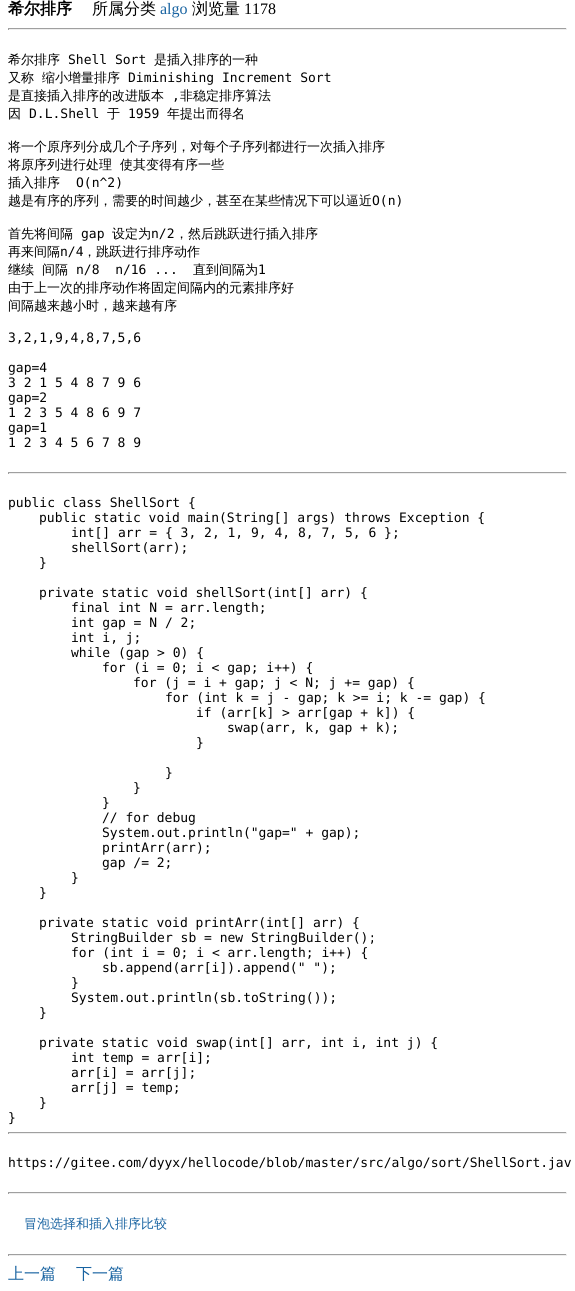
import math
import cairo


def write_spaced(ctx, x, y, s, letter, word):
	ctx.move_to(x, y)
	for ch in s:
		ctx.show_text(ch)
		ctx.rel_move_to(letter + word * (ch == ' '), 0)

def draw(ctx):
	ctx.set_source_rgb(1, 1, 1)
	ctx.paint()
	ctx.select_font_face('WenQuanYi Zen Hei', cairo.FONT_SLANT_NORMAL, cairo.FONT_WEIGHT_BOLD)
	ctx.set_font_size(16)
	ctx.set_source_rgb(0, 0, 0)
	ctx.move_to(8, 14)
	ctx.show_text('希尔排序')
	ctx.select_font_face('WenQuanYi Zen Hei Medium')
	ctx.move_to(92, 14)
	ctx.show_text('所属分类')
	ctx.select_font_face('Liberation Serif')
	ctx.set_source_rgb(0.094, 0.388, 0.631)
	ctx.move_to(160, 14)
	ctx.show_text('algo')
	ctx.select_font_face('WenQuanYi Zen Hei Medium')
	ctx.set_source_rgb(0, 0, 0)
	ctx.move_to(192, 14)
	ctx.show_text('浏览量')
	ctx.select_font_face('Liberation Serif')
	ctx.move_to(244, 14)
	ctx.show_text('1178')
	ctx.set_source_rgb(0.624, 0.624, 0.624)
	ctx.rectangle(8, 28, 559, 1)
	ctx.fill()
	ctx.set_source_rgb(0.933, 0.933, 0.933)
	ctx.rectangle(566, 28, 1, 2)
	ctx.rectangle(8, 29, 559, 1)
	ctx.fill()
	ctx.set_source_rgb(0.624, 0.624, 0.624)
	ctx.rectangle(8, 28, 1, 2)
	ctx.fill()
	ctx.select_font_face('WenQuanYi Zen Hei Medium')
	ctx.set_font_size(13)
	ctx.set_source_rgb(0, 0, 0)
	ctx.move_to(8, 64)
	ctx.show_text('希尔排序')
	ctx.select_font_face('DejaVu Sans Mono')
	ctx.move_to(68, 64)
	ctx.show_text('Shell Sort')
	ctx.select_font_face('WenQuanYi Zen Hei Medium')
	for x, y, s in [
		(154, 64, '是插入排序的一种'),
		(8, 82, '又称'),
		(42, 82, '缩小增量排序'),
	]:
		ctx.move_to(x, y)
		ctx.show_text(s)
	ctx.select_font_face('DejaVu Sans Mono')
	ctx.move_to(128, 82)
	ctx.show_text('Diminishing Increment Sort')
	ctx.select_font_face('WenQuanYi Zen Hei Medium')
	ctx.move_to(8, 100)
	ctx.show_text('是直接插入排序的改进版本')
	ctx.select_font_face('DejaVu Sans Mono')
	ctx.move_to(172, 100)
	ctx.show_text(',')
	ctx.select_font_face('WenQuanYi Zen Hei Medium')
	ctx.move_to(180, 100)
	ctx.show_text('非稳定排序算法')
	ctx.move_to(8, 118)
	ctx.show_text('因')
	ctx.select_font_face('DejaVu Sans Mono')
	ctx.move_to(29, 118)
	ctx.show_text('D.L.Shell')
	ctx.select_font_face('WenQuanYi Zen Hei Medium')
	ctx.move_to(107, 118)
	ctx.show_text('于')
	ctx.select_font_face('DejaVu Sans Mono')
	ctx.move_to(128, 118)
	ctx.show_text('1959')
	ctx.select_font_face('WenQuanYi Zen Hei Medium')
	ctx.move_to(167, 118)
	ctx.show_text('年提出而得名')
	ctx.move_to(8, 151)
	ctx.show_text('将一个原序列分成几个子序列，对每个子序列都进行一次插入排序')
	write_spaced(ctx, 8, 169, '将原序列进行处理 使其变得有序一些', 0, 4)
	ctx.move_to(8, 187)
	ctx.show_text('插入排序')
	ctx.select_font_face('DejaVu Sans Mono')
	ctx.move_to(76, 187)
	ctx.show_text('O(n^2)')
	ctx.select_font_face('WenQuanYi Zen Hei Medium')
	ctx.move_to(8, 205)
	ctx.show_text('越是有序的序列，需要的时间越少，甚至在某些情况下可以逼近')
	ctx.select_font_face('DejaVu Sans Mono')
	ctx.move_to(372, 205)
	ctx.show_text('O(n)')
	ctx.select_font_face('WenQuanYi Zen Hei Medium')
	ctx.move_to(8, 238)
	ctx.show_text('首先将间隔')
	ctx.select_font_face('DejaVu Sans Mono')
	ctx.move_to(81, 238)
	ctx.show_text('gap')
	ctx.select_font_face('WenQuanYi Zen Hei Medium')
	ctx.move_to(112, 238)
	ctx.show_text('设定为')
	ctx.select_font_face('DejaVu Sans Mono')
	ctx.move_to(151, 238)
	ctx.show_text('n/2')
	ctx.select_font_face('WenQuanYi Zen Hei Medium')
	ctx.move_to(175, 238)
	ctx.show_text('，然后跳跃进行插入排序')
	ctx.move_to(8, 256)
	ctx.show_text('再来间隔')
	ctx.select_font_face('DejaVu Sans Mono')
	ctx.move_to(60, 256)
	ctx.show_text('n/4')
	ctx.select_font_face('WenQuanYi Zen Hei Medium')
	for x, y, s in [
		(83, 256, '，跳跃进行排序动作'),
		(8, 274, '继续'),
		(42, 274, '间隔'),
	]:
		ctx.move_to(x, y)
		ctx.show_text(s)
	ctx.select_font_face('DejaVu Sans Mono')
	ctx.move_to(76, 274)
	ctx.show_text('n/8  n/16 ...')
	ctx.select_font_face('WenQuanYi Zen Hei Medium')
	ctx.move_to(193, 274)
	ctx.show_text('直到间隔为')
	ctx.select_font_face('DejaVu Sans Mono')
	ctx.move_to(258, 274)
	ctx.show_text('1')
	ctx.select_font_face('WenQuanYi Zen Hei Medium')
	ctx.move_to(8, 292)
	ctx.show_text('由于上一次的排序动作将固定间隔内的元素排序好')
	ctx.move_to(8, 310)
	ctx.show_text('间隔越来越小时，越来越有序')
	ctx.select_font_face('DejaVu Sans Mono')
	for x, y, s in [
		(8, 342, '3,2,1,9,4,8,7,5,6'),
		(8, 372, 'gap=4'),
		(8, 387, '3 2 1 5 4 8 7 9 6'),
		(8, 402, 'gap=2'),
		(8, 417, '1 2 3 5 4 8 6 9 7'),
		(8, 432, 'gap=1'),
		(8, 447, '1 2 3 4 5 6 7 8 9'),
	]:
		ctx.move_to(x, y)
		ctx.show_text(s)
	ctx.set_source_rgb(0.624, 0.624, 0.624)
	ctx.rectangle(8, 472, 559, 1)
	ctx.fill()
	ctx.set_source_rgb(0.933, 0.933, 0.933)
	ctx.rectangle(566, 472, 1, 2)
	ctx.rectangle(8, 473, 559, 1)
	ctx.fill()
	ctx.set_source_rgb(0.624, 0.624, 0.624)
	ctx.rectangle(8, 472, 1, 2)
	ctx.fill()
	ctx.set_source_rgb(0, 0, 0)
	for x, y, s in [
		(8, 507, 'public class ShellSort {'),
		(39, 522, 'public static void main(String[] args) throws Exception {'),
		(71, 537, 'int[] arr = { 3, 2, 1, 9, 4, 8, 7, 5, 6 };'),
		(71, 552, 'shellSort(arr);'),
		(39, 567, '}'),
		(39, 597, 'private static void shellSort(int[] arr) {'),
		(71, 612, 'final int N = arr.length;'),
		(71, 627, 'int gap = N / 2;'),
		(71, 642, 'int i, j;'),
		(71, 657, 'while (gap > 0) {'),
		(102, 672, 'for (i = 0; i < gap; i++) {'),
		(133, 687, 'for (j = i + gap; j < N; j += gap) {'),
		(165, 702, 'for (int k = j - gap; k >= i; k -= gap) {'),
		(196, 717, 'if (arr[k] > arr[gap + k]) {'),
		(227, 732, 'swap(arr, k, gap + k);'),
		(196, 747, '}'),
		(165, 777, '}'),
		(133, 792, '}'),
		(102, 807, '}'),
		(102, 822, '// for debug'),
		(102, 837, 'System.out.println("gap=" + gap);'),
		(102, 852, 'printArr(arr);'),
		(102, 867, 'gap /= 2;'),
		(71, 882, '}'),
		(39, 897, '}'),
		(39, 927, 'private static void printArr(int[] arr) {'),
		(71, 942, 'StringBuilder sb = new StringBuilder();'),
		(71, 957, 'for (int i = 0; i < arr.length; i++) {'),
		(102, 972, 'sb.append(arr[i]).append(" ");'),
		(71, 987, '}'),
		(71, 1002, 'System.out.println(sb.toString());'),
		(39, 1017, '}'),
		(39, 1047, 'private static void swap(int[] arr, int i, int j) {'),
		(71, 1062, 'int temp = arr[i];'),
		(71, 1077, 'arr[i] = arr[j];'),
		(71, 1092, 'arr[j] = temp;'),
		(39, 1107, '}'),
		(8, 1122, '}'),
	]:
		ctx.move_to(x, y)
		ctx.show_text(s)
	ctx.set_source_rgb(0.624, 0.624, 0.624)
	ctx.rectangle(8, 1132, 559, 1)
	ctx.fill()
	ctx.set_source_rgb(0.933, 0.933, 0.933)
	ctx.rectangle(566, 1132, 1, 2)
	ctx.rectangle(8, 1133, 559, 1)
	ctx.fill()
	ctx.set_source_rgb(0.624, 0.624, 0.624)
	ctx.rectangle(8, 1132, 1, 2)
	ctx.fill()
	ctx.set_source_rgb(0, 0, 0)
	ctx.move_to(8, 1167)
	ctx.show_text('https://gitee.com/dyyx/hellocode/blob/master/src/algo/sort/ShellSort.jav')
	ctx.set_source_rgb(0.624, 0.624, 0.624)
	ctx.rectangle(8, 1192, 559, 1)
	ctx.fill()
	ctx.set_source_rgb(0.933, 0.933, 0.933)
	ctx.rectangle(566, 1192, 1, 2)
	ctx.rectangle(8, 1193, 559, 1)
	ctx.fill()
	ctx.set_source_rgb(0.624, 0.624, 0.624)
	ctx.rectangle(8, 1192, 1, 2)
	ctx.fill()
	ctx.select_font_face('WenQuanYi Zen Hei Medium')
	ctx.set_source_rgb(0.094, 0.388, 0.631)
	ctx.move_to(24, 1228)
	ctx.show_text('冒泡选择和插入排序比较')
	ctx.set_source_rgb(0.624, 0.624, 0.624)
	ctx.rectangle(8, 1254, 559, 1)
	ctx.fill()
	ctx.set_source_rgb(0.933, 0.933, 0.933)
	ctx.rectangle(566, 1254, 1, 2)
	ctx.rectangle(8, 1255, 559, 1)
	ctx.fill()
	ctx.set_source_rgb(0.624, 0.624, 0.624)
	ctx.rectangle(8, 1254, 1, 2)
	ctx.fill()
	ctx.set_font_size(16)
	ctx.set_source_rgb(0.094, 0.388, 0.631)
	ctx.move_to(8, 1279)
	ctx.show_text('上一篇')
	ctx.move_to(76, 1279)
	ctx.show_text('下一篇')


surface = cairo.ImageSurface(cairo.FORMAT_RGB24, 575, 1291)
ctx = cairo.Context(surface)
options = cairo.FontOptions()
options.set_hint_metrics(cairo.HINT_METRICS_OFF)
options.set_hint_style(cairo.HINT_STYLE_NONE)
ctx.set_font_options(options)
ctx.set_miter_limit(4)
draw(ctx)
surface.write_to_png('image.png')
